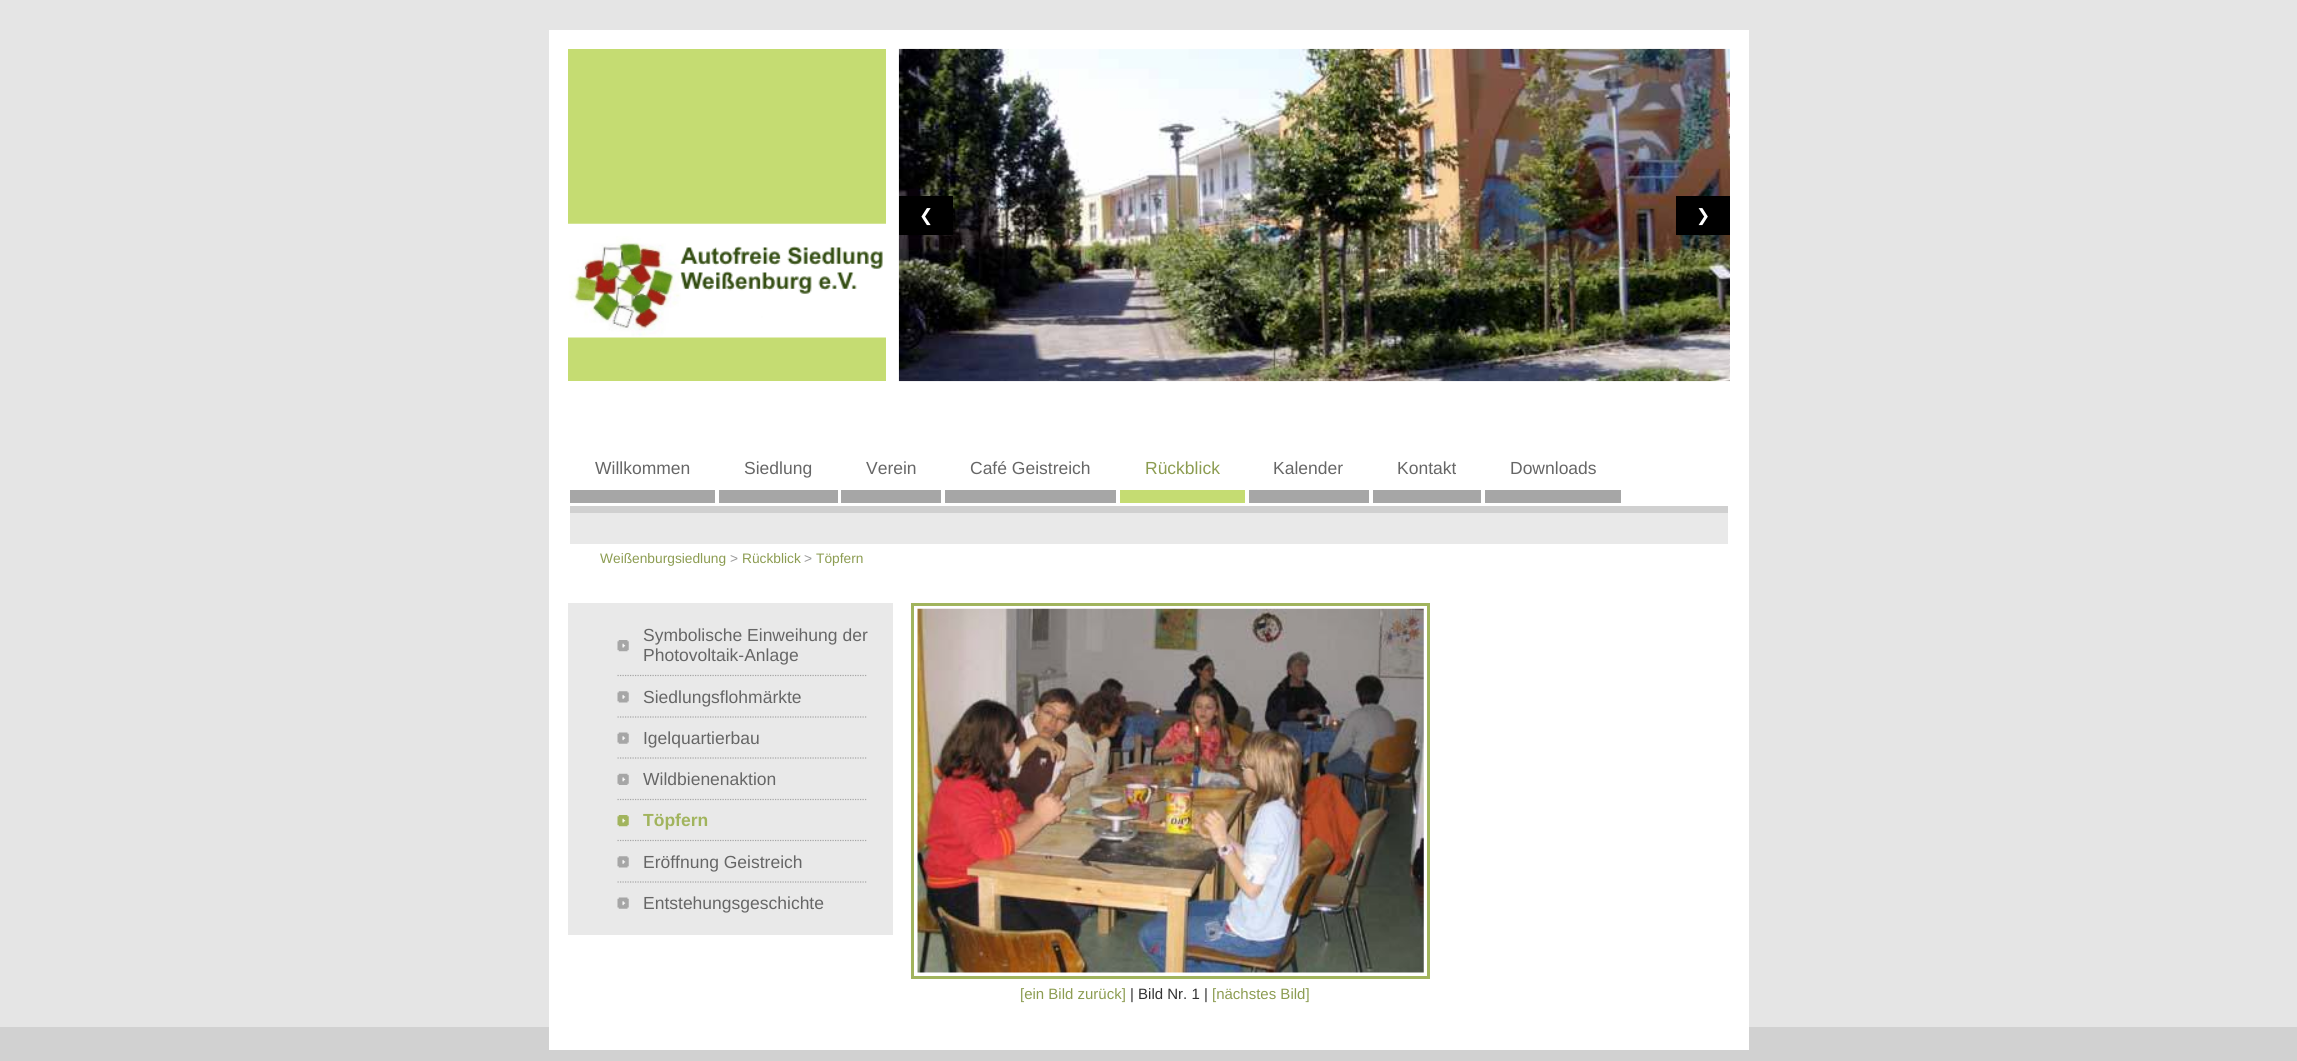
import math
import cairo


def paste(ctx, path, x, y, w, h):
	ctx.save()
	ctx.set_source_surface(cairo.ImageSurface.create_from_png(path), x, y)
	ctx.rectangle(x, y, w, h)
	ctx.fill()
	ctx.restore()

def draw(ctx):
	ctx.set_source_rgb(0.898, 0.898, 0.898)
	ctx.paint()
	ctx.set_source_rgb(0.82, 0.82, 0.82)
	ctx.rectangle(0, 1027, 2297, 34)
	ctx.fill()
	ctx.set_source_rgb(1, 1, 1)
	ctx.rectangle(549, 30, 1200, 1020)
	ctx.fill()
	ctx.set_source_rgb(0.773, 0.863, 0.447)
	ctx.rectangle(568, 49, 318, 332)
	ctx.fill()
	paste(ctx, 'media/1.png', 568, 223, 318, 115)
	paste(ctx, 'media/2.png', 898, 48, 832, 334)
	ctx.set_source_rgb(0, 0, 0)
	ctx.rectangle(899, 196, 54, 39)
	ctx.fill()
	ctx.select_font_face('DejaVu Sans')
	ctx.set_font_size(17)
	ctx.set_source_rgb(1, 1, 1)
	ctx.move_to(919, 221)
	ctx.show_text('❮')
	ctx.set_source_rgb(0, 0, 0)
	ctx.rectangle(1676, 196, 54, 39)
	ctx.fill()
	ctx.set_source_rgb(1, 1, 1)
	ctx.move_to(1696, 221)
	ctx.show_text('❯')
	ctx.set_source_rgb(0.651, 0.651, 0.651)
	ctx.rectangle(570, 490, 145, 13)
	ctx.fill()
	ctx.select_font_face('Liberation Sans')
	ctx.set_font_size(17.5)
	ctx.set_source_rgb(0.4, 0.4, 0.4)
	ctx.move_to(595, 474)
	ctx.show_text('Willkommen')
	ctx.set_source_rgb(0.651, 0.651, 0.651)
	ctx.rectangle(719, 490, 119, 13)
	ctx.fill()
	ctx.set_source_rgb(0.4, 0.4, 0.4)
	ctx.move_to(744, 474)
	ctx.show_text('Siedlung')
	ctx.set_source_rgb(0.651, 0.651, 0.651)
	ctx.rectangle(841, 490, 100, 13)
	ctx.fill()
	ctx.set_source_rgb(0.4, 0.4, 0.4)
	ctx.move_to(866, 474)
	ctx.show_text('Verein')
	ctx.set_source_rgb(0.651, 0.651, 0.651)
	ctx.rectangle(945, 490, 171, 13)
	ctx.fill()
	ctx.set_source_rgb(0.4, 0.4, 0.4)
	ctx.move_to(970, 474)
	ctx.show_text('Café Geistreich')
	ctx.set_source_rgb(0.773, 0.863, 0.447)
	ctx.rectangle(1120, 490, 125, 13)
	ctx.fill()
	ctx.set_source_rgb(0.549, 0.612, 0.318)
	ctx.move_to(1145, 474)
	ctx.show_text('Rückblick')
	ctx.set_source_rgb(0.651, 0.651, 0.651)
	ctx.rectangle(1249, 490, 120, 13)
	ctx.fill()
	ctx.set_source_rgb(0.4, 0.4, 0.4)
	ctx.move_to(1273, 474)
	ctx.show_text('Kalender')
	ctx.set_source_rgb(0.651, 0.651, 0.651)
	ctx.rectangle(1373, 490, 108, 13)
	ctx.fill()
	ctx.set_source_rgb(0.4, 0.4, 0.4)
	ctx.move_to(1397, 474)
	ctx.show_text('Kontakt')
	ctx.set_source_rgb(0.651, 0.651, 0.651)
	ctx.rectangle(1485, 490, 136, 13)
	ctx.fill()
	ctx.set_source_rgb(0.4, 0.4, 0.4)
	ctx.move_to(1510, 474)
	ctx.show_text('Downloads')
	ctx.set_source_rgb(0.816, 0.816, 0.816)
	ctx.rectangle(570, 506, 1158, 7)
	ctx.fill()
	ctx.set_source_rgb(0.914, 0.914, 0.914)
	ctx.rectangle(570, 513, 1158, 31)
	ctx.fill()
	ctx.set_font_size(13.75)
	ctx.set_source_rgb(0.549, 0.612, 0.318)
	ctx.move_to(600, 563)
	ctx.show_text('Weißenburgsiedlung')
	ctx.set_source_rgb(0.6, 0.6, 0.6)
	ctx.move_to(730, 563)
	ctx.show_text('>')
	ctx.set_source_rgb(0.549, 0.612, 0.318)
	ctx.move_to(742, 563)
	ctx.show_text('Rückblick')
	ctx.set_source_rgb(0.6, 0.6, 0.6)
	ctx.move_to(804, 563)
	ctx.show_text('>')
	ctx.set_source_rgb(0.549, 0.612, 0.318)
	ctx.move_to(816, 563)
	ctx.show_text('Töpfern')
	ctx.set_source_rgb(0.914, 0.914, 0.914)
	ctx.rectangle(568, 603, 325, 332)
	ctx.fill()
	paste(ctx, 'media/3.png', 617, 640, 12, 12)
	ctx.new_path()
	ctx.move_to(617.5, 675.5)
	ctx.line_to(867.5, 675.5)
	ctx.set_source_rgb(0.651, 0.651, 0.651)
	ctx.set_line_width(1.2)
	ctx.set_dash([1.25, 1.25])
	ctx.stroke()
	ctx.set_font_size(17.5)
	ctx.set_source_rgb(0.4, 0.4, 0.4)
	ctx.move_to(643, 641)
	ctx.show_text('Symbolische Einweihung der')
	ctx.move_to(643, 661)
	ctx.show_text('Photovoltaik-Anlage')
	paste(ctx, 'media/4.png', 617, 691, 12, 12)
	ctx.new_path()
	ctx.move_to(617.5, 717)
	ctx.line_to(867.5, 717)
	ctx.set_source_rgb(0.651, 0.651, 0.651)
	ctx.stroke()
	ctx.set_source_rgb(0.4, 0.4, 0.4)
	ctx.move_to(643, 703)
	ctx.show_text('Siedlungsflohmärkte')
	paste(ctx, 'media/5.png', 617, 732, 12, 12)
	ctx.new_path()
	ctx.move_to(617.5, 758)
	ctx.line_to(867.5, 758)
	ctx.set_source_rgb(0.651, 0.651, 0.651)
	ctx.stroke()
	ctx.set_source_rgb(0.4, 0.4, 0.4)
	ctx.move_to(643, 744)
	ctx.show_text('Igelquartierbau')
	paste(ctx, 'media/6.png', 617, 773, 12, 12)
	ctx.new_path()
	ctx.move_to(617.5, 799.5)
	ctx.line_to(867.5, 799.5)
	ctx.set_source_rgb(0.651, 0.651, 0.651)
	ctx.stroke()
	ctx.set_source_rgb(0.4, 0.4, 0.4)
	ctx.move_to(643, 785)
	ctx.show_text('Wildbienenaktion')
	paste(ctx, 'media/7.png', 617, 815, 12, 12)
	ctx.new_path()
	ctx.move_to(617.5, 840.5)
	ctx.line_to(867.5, 840.5)
	ctx.set_source_rgb(0.651, 0.651, 0.651)
	ctx.stroke()
	ctx.select_font_face('Liberation Sans', cairo.FONT_SLANT_NORMAL, cairo.FONT_WEIGHT_BOLD)
	ctx.set_source_rgb(0.631, 0.706, 0.365)
	ctx.move_to(643, 826)
	ctx.show_text('Töpfern')
	paste(ctx, 'media/4.png', 617, 856, 12, 12)
	ctx.new_path()
	ctx.move_to(617.5, 882)
	ctx.line_to(867.5, 882)
	ctx.set_source_rgb(0.651, 0.651, 0.651)
	ctx.stroke()
	ctx.select_font_face('Liberation Sans')
	ctx.set_source_rgb(0.4, 0.4, 0.4)
	ctx.move_to(643, 868)
	ctx.show_text('Eröffnung Geistreich')
	paste(ctx, 'media/5.png', 617, 897, 12, 12)
	ctx.move_to(643, 909)
	ctx.show_text('Entstehungsgeschichte')
	ctx.rectangle(912.5, 604.5, 516, 373)
	ctx.set_source_rgb(0.631, 0.706, 0.365)
	ctx.set_line_width(3)
	ctx.set_dash([])
	ctx.stroke()
	paste(ctx, 'media/8.png', 917, 608, 507, 365)
	ctx.set_font_size(15)
	ctx.set_source_rgb(0.549, 0.612, 0.318)
	ctx.move_to(1020, 999)
	ctx.show_text('[ein Bild zurück]')
	ctx.set_source_rgb(0.2, 0.2, 0.2)
	ctx.move_to(1130, 999)
	ctx.show_text('| Bild Nr. 1 |')
	ctx.set_source_rgb(0.549, 0.612, 0.318)
	ctx.move_to(1212, 999)
	ctx.show_text('[nächstes Bild]')


surface = cairo.ImageSurface(cairo.FORMAT_RGB24, 2297, 1061)
ctx = cairo.Context(surface)
options = cairo.FontOptions()
options.set_hint_metrics(cairo.HINT_METRICS_OFF)
options.set_hint_style(cairo.HINT_STYLE_NONE)
ctx.set_font_options(options)
ctx.set_miter_limit(4)
draw(ctx)
surface.write_to_png('image.png')
